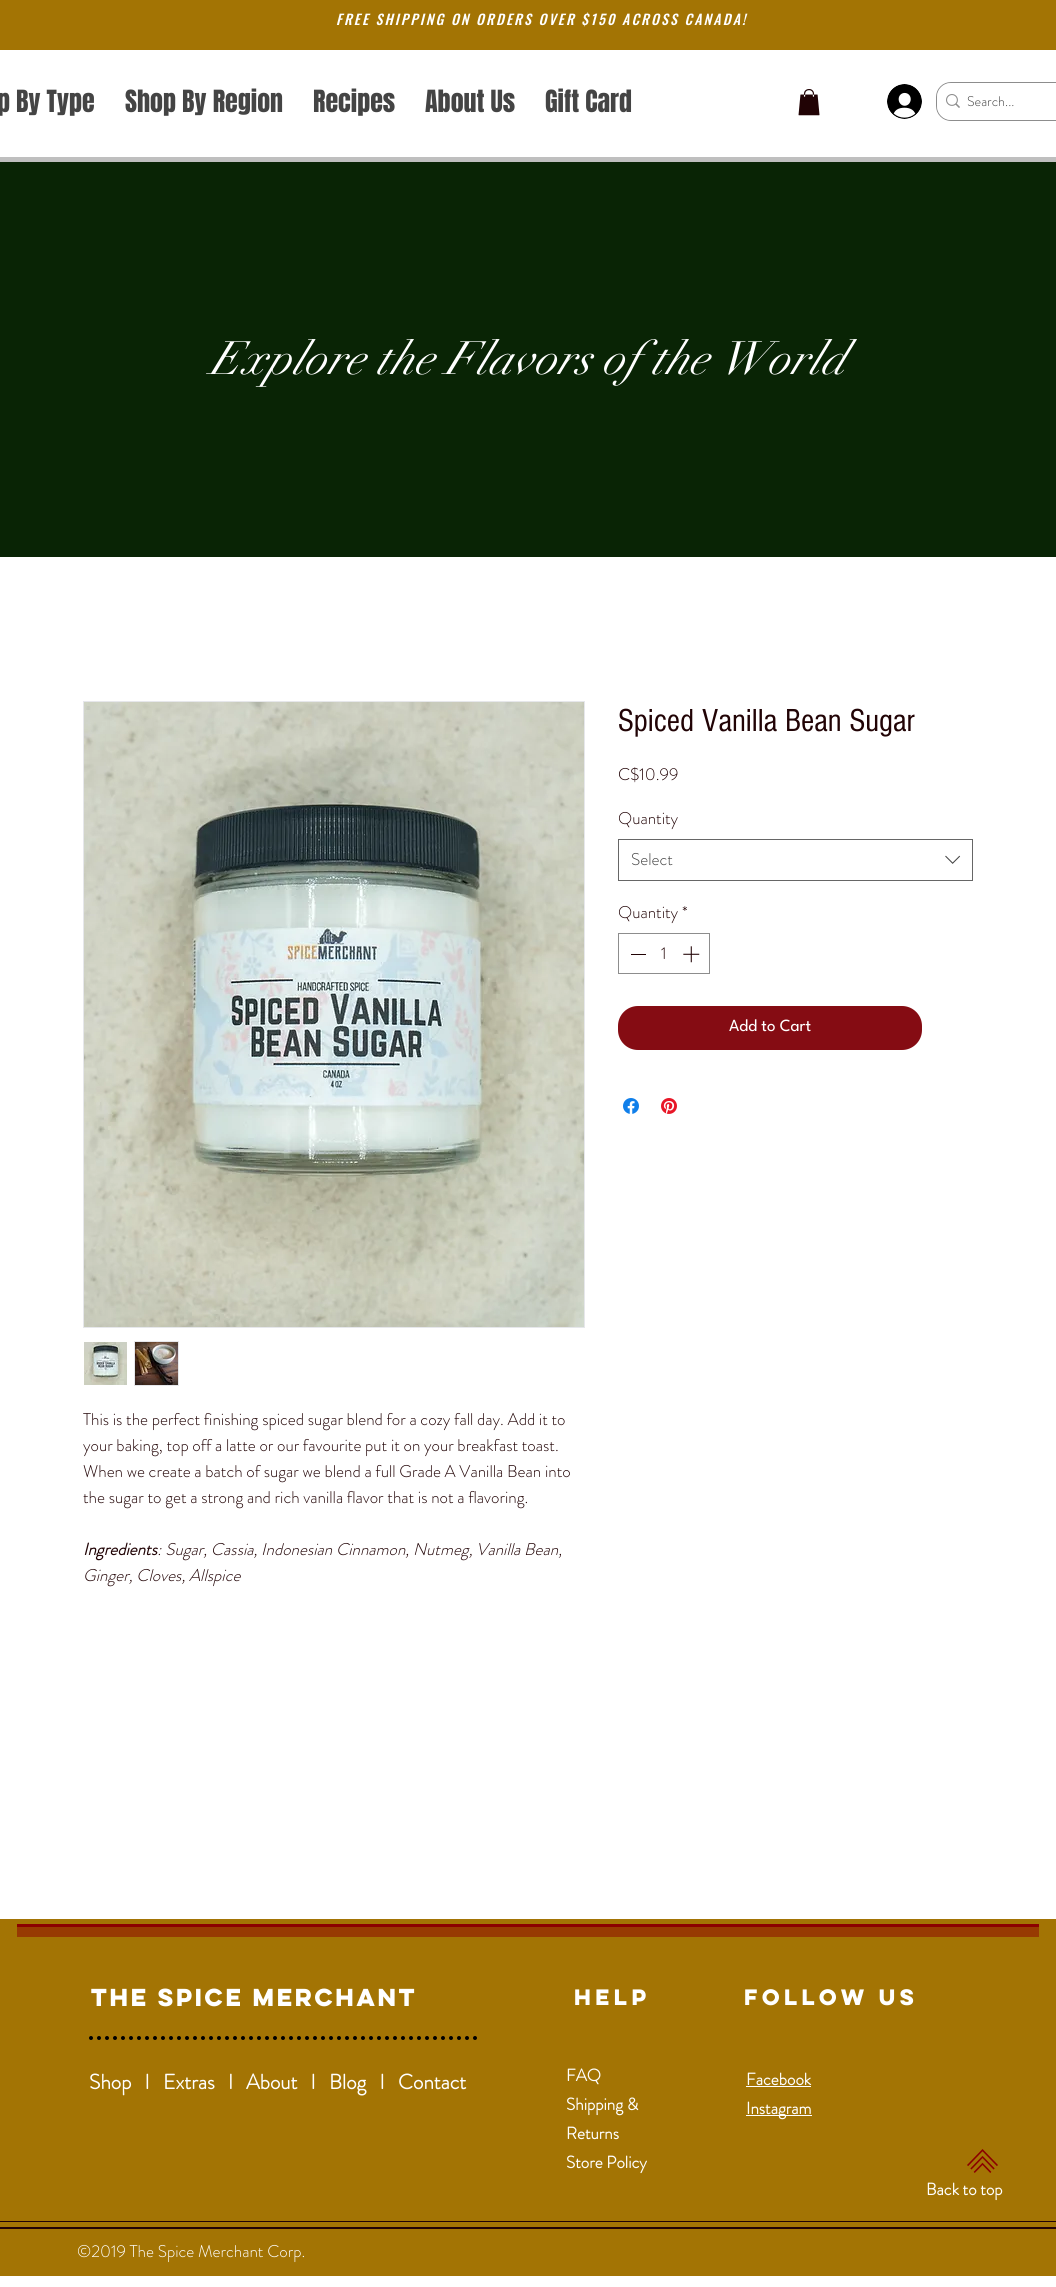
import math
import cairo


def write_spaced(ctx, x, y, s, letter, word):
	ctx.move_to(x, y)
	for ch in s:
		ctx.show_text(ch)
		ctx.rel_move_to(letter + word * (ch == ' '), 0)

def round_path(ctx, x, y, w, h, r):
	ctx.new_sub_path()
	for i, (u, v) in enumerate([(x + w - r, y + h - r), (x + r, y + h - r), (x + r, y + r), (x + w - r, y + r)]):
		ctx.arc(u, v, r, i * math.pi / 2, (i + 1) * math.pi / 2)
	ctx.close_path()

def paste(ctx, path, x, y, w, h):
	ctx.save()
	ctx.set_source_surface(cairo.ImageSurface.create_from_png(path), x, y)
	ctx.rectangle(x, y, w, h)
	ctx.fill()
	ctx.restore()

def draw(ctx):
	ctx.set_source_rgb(1, 1, 1)
	ctx.paint()
	ctx.set_source_rgb(0.639, 0.455, 0.016)
	ctx.rectangle(0, 0, 1056, 50)
	ctx.fill()
	ctx.select_font_face('Oswald Medium', cairo.FONT_SLANT_ITALIC)
	ctx.set_font_size(14)
	ctx.set_source_rgb(1, 1, 1)
	write_spaced(ctx, 336, 25, 'FREE SHIPPING ON ORDERS OVER $150 ACROSS CANADA!', 2.1, 0)
	ctx.select_font_face('Anton')
	ctx.set_font_size(26)
	ctx.set_source_rgb(0.267, 0.267, 0.267)
	for x, y, s in [
		(-3, 112, 'p By Type'),
		(125, 112, 'Shop By Region'),
		(313, 112, 'Recipes'),
		(425, 112, 'About Us'),
		(545, 112, 'Gift Card'),
	]:
		ctx.move_to(x, y)
		ctx.show_text(s)
	paste(ctx, 'media/1.png', 798, 89, 22, 27)
	paste(ctx, 'media/2.png', 887, 84, 35, 35)
	round_path(ctx, 936.5, 82.5, 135, 38, 14.5)
	ctx.set_source_rgb(0.553, 0.553, 0.553)
	ctx.set_line_width(1)
	ctx.stroke()
	ctx.set_source_rgba(1, 1, 1, 0.67)
	round_path(ctx, 937, 83, 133, 37, 14)
	ctx.fill()
	paste(ctx, 'media/3.png', 946, 94, 14, 14)
	ctx.select_font_face('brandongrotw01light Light')
	ctx.set_font_size(14)
	ctx.set_source_rgb(0.267, 0.267, 0.267)
	ctx.move_to(967, 106)
	ctx.show_text('Search...')
	ctx.set_source_rgb(0.749, 0.749, 0.749)
	ctx.rectangle(0, 157, 1056, 5)
	ctx.fill()
	ctx.set_source_rgb(0.039, 0.141, 0.02)
	ctx.rectangle(0, 162, 1056, 395)
	ctx.fill()
	ctx.select_font_face('didot', cairo.FONT_SLANT_ITALIC)
	ctx.set_font_size(46)
	ctx.set_source_rgb(1, 1, 1)
	ctx.move_to(210, 374)
	ctx.show_text('Explore the Flavors of the World')
	ctx.select_font_face('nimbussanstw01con')
	ctx.set_font_size(33)
	ctx.set_source_rgb(0.129, 0.012, 0.02)
	ctx.move_to(618, 731)
	ctx.show_text('Spiced Vanilla Bean Sugar')
	ctx.select_font_face('brandongrotw01light Light')
	ctx.set_font_size(17)
	ctx.move_to(618, 780)
	ctx.show_text('C$10.99')
	ctx.move_to(618, 824)
	ctx.show_text('Quantity')
	ctx.rectangle(618.5, 839.5, 354, 41)
	ctx.set_source_rgb(0.4, 0.4, 0.4)
	ctx.stroke()
	ctx.set_source_rgb(0.267, 0.267, 0.267)
	ctx.move_to(631, 865)
	ctx.show_text('Select')
	paste(ctx, 'media/4.png', 945, 855, 16, 9)
	ctx.set_source_rgb(0.129, 0.012, 0.02)
	ctx.move_to(618, 918)
	ctx.show_text('Quantity')
	ctx.move_to(682, 918)
	ctx.show_text('*')
	ctx.rectangle(618.5, 933.5, 91, 40)
	ctx.set_source_rgb(0.553, 0.553, 0.553)
	ctx.stroke()
	ctx.set_source_rgb(0.129, 0.012, 0.02)
	ctx.rectangle(631, 954, 15, 1)
	ctx.fill()
	ctx.move_to(661, 959)
	ctx.show_text('1')
	paste(ctx, 'media/5.png', 683, 946, 17, 17)
	ctx.set_source_rgb(0.522, 0.047, 0.078)
	round_path(ctx, 618, 1006, 304, 44, 20)
	ctx.fill()
	ctx.select_font_face('League Spartan')
	ctx.set_source_rgb(1, 1, 1)
	ctx.move_to(729, 1031)
	ctx.show_text('Add to Cart')
	paste(ctx, 'media/6.png', 623, 1098, 16, 16)
	paste(ctx, 'media/7.png', 661, 1098, 16, 16)
	ctx.rectangle(83.5, 701.5, 501, 626)
	ctx.set_source_rgb(0.902, 0.906, 0.918)
	ctx.stroke()
	paste(ctx, 'media/8.png', 84, 702, 500, 625)
	paste(ctx, 'media/9.png', 84, 1342, 43, 43)
	ctx.rectangle(134.5, 1341.5, 44, 44)
	ctx.stroke()
	paste(ctx, 'media/10.png', 135, 1342, 43, 43)
	ctx.select_font_face('brandongrotw01light Light')
	ctx.set_source_rgb(0.129, 0.012, 0.02)
	for x, y, s in [
		(83, 1425, 'This is the perfect finishing spiced sugar blend for a cozy fall day. Add it to'),
		(83, 1451, 'your baking, top off a latte or our favourite put it on your breakfast toast.'),
		(83, 1477, 'When we create a batch of sugar we blend a full Grade A Vanilla Bean into'),
		(83, 1503, 'the sugar to get a strong and rich vanilla flavor that is not a flavoring.'),
	]:
		ctx.move_to(x, y)
		ctx.show_text(s)
	ctx.select_font_face('brandongrotw01light', cairo.FONT_SLANT_ITALIC, cairo.FONT_WEIGHT_BOLD)
	ctx.move_to(83, 1555)
	ctx.show_text('Ingredients')
	ctx.select_font_face('brandongrotw01light Light', cairo.FONT_SLANT_ITALIC)
	ctx.move_to(157, 1555)
	ctx.show_text(': Sugar, Cassia, Indonesian Cinnamon, Nutmeg, Vanilla Bean,')
	ctx.move_to(83, 1581)
	ctx.show_text('Ginger, Cloves, Allspice')
	ctx.set_source_rgb(0.639, 0.455, 0.016)
	ctx.rectangle(0, 1919, 1056, 357)
	ctx.fill()
	ctx.set_source_rgb(0.545, 0, 0)
	ctx.rectangle(17, 1924, 1022, 3)
	ctx.fill()
	ctx.set_source_rgb(0.592, 0.227, 0.008)
	ctx.rectangle(17, 1927, 1022, 10)
	ctx.fill()
	ctx.select_font_face('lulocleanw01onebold', cairo.FONT_SLANT_NORMAL, cairo.FONT_WEIGHT_BOLD)
	ctx.set_font_size(22)
	ctx.set_source_rgb(1, 1, 1)
	write_spaced(ctx, 91, 2006, 'The Spice Merchant', -2.25, 0)
	ctx.set_font_size(20)
	ctx.move_to(574, 2005)
	ctx.show_text('Help')
	ctx.move_to(744, 2005)
	ctx.show_text('Follow Us')
	ctx.new_path()
	ctx.move_to(91, 2038)
	ctx.line_to(476, 2038)
	ctx.set_source_rgb(0, 0, 0)
	ctx.set_line_width(4)
	ctx.set_line_cap(cairo.LINE_CAP_ROUND)
	ctx.set_dash([0, 8])
	ctx.stroke()
	ctx.select_font_face('brandongrotw01light', cairo.FONT_SLANT_NORMAL, cairo.FONT_WEIGHT_BOLD)
	ctx.set_font_size(21)
	ctx.set_source_rgb(1, 1, 1)
	for x, y, s in [
		(89, 2089, 'Shop   l'),
		(163, 2089, 'Extras   l'),
		(246, 2089, 'About   l'),
		(329, 2089, 'Blog   l'),
		(398, 2089, 'Contact'),
	]:
		ctx.move_to(x, y)
		ctx.show_text(s)
	ctx.set_font_size(17)
	for x, y, s in [
		(566, 2081, 'FAQ'),
		(566, 2110, 'Shipping &'),
		(566, 2139, 'Returns'),
		(566, 2168, 'Store Policy'),
		(746, 2085, 'Facebook'),
	]:
		ctx.move_to(x, y)
		ctx.show_text(s)
	ctx.rectangle(746, 2086, 65, 1)
	ctx.fill()
	ctx.rectangle(746, 2115, 66, 1)
	ctx.fill()
	ctx.move_to(746, 2114)
	ctx.show_text('Instagram')
	paste(ctx, 'media/11.png', 967, 2149, 31, 24)
	ctx.move_to(926, 2195)
	ctx.show_text('Back to top')
	ctx.set_source_rgb(0.129, 0.012, 0.02)
	ctx.rectangle(0, 2221, 1056, 1)
	ctx.fill()
	ctx.rectangle(0, 2227, 1056, 2)
	ctx.fill()
	ctx.select_font_face('brandongrotw01light Light')
	ctx.set_source_rgb(1, 1, 1)
	ctx.move_to(77, 2257)
	ctx.show_text('©2019 The Spice Merchant Corp.')


surface = cairo.ImageSurface(cairo.FORMAT_RGB24, 1056, 2287)
ctx = cairo.Context(surface)
options = cairo.FontOptions()
options.set_hint_metrics(cairo.HINT_METRICS_OFF)
options.set_hint_style(cairo.HINT_STYLE_NONE)
ctx.set_font_options(options)
ctx.set_miter_limit(4)
draw(ctx)
surface.write_to_png('image.png')
